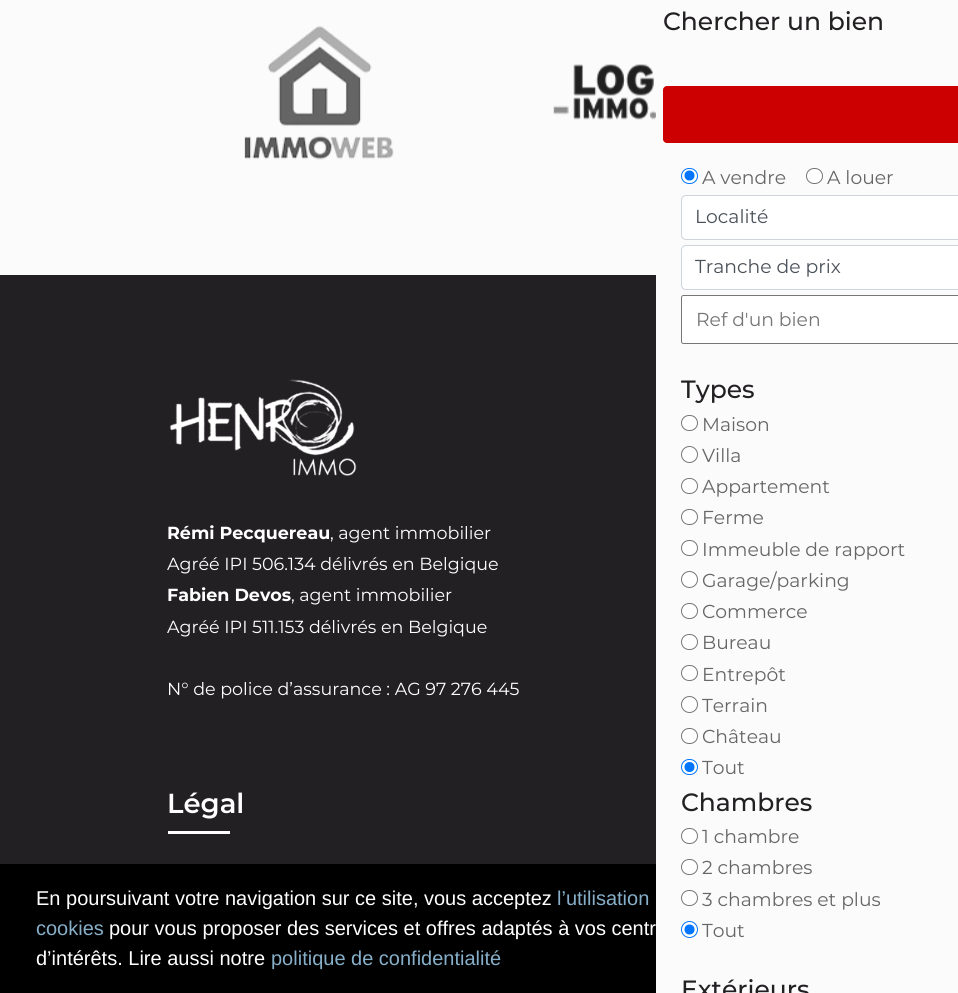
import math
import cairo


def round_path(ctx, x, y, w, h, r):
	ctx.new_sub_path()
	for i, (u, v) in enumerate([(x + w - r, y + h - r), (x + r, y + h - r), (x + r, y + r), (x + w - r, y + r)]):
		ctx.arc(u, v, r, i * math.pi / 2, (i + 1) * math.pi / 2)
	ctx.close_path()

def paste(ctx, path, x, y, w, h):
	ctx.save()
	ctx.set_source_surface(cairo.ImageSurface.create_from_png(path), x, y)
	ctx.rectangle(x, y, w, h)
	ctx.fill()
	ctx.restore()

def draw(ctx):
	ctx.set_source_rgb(0.984, 0.984, 0.984)
	ctx.paint()
	paste(ctx, 'media/1.png', 244, 25, 150, 135)
	paste(ctx, 'media/2.png', 553, 64, 103, 56)
	ctx.select_font_face('Montserrat Medium')
	ctx.set_font_size(25)
	ctx.set_source_rgb(0.137, 0.125, 0.137)
	ctx.move_to(663, 30)
	ctx.show_text('Chercher un bien')
	ctx.set_source_rgb(0.8, 0, 0)
	round_path(ctx, 663, 86, 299, 57, 4)
	ctx.fill()
	ctx.set_source_rgb(1, 1, 1)
	round_path(ctx, 681.5, 168.5, 16, 15, 7.5)
	ctx.fill_preserve()
	ctx.set_source_rgb(0, 0.459, 1)
	ctx.set_line_width(1)
	ctx.stroke()
	ctx.arc(689.5, 175.5, 5, 0, 2 * math.pi)
	ctx.fill()
	ctx.select_font_face('Montserrat')
	ctx.set_font_size(18.75)
	ctx.set_source_rgb(0.4, 0.4, 0.4)
	ctx.move_to(702, 184)
	ctx.show_text('A vendre')
	ctx.set_source_rgb(1, 1, 1)
	round_path(ctx, 806.5, 168.5, 16, 15, 7.5)
	ctx.fill_preserve()
	ctx.set_source_rgb(0.463, 0.463, 0.463)
	ctx.stroke()
	ctx.set_source_rgb(0.4, 0.4, 0.4)
	ctx.move_to(827, 184)
	ctx.show_text('A louer')
	ctx.set_source_rgb(1, 1, 1)
	round_path(ctx, 681.5, 195.5, 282, 44, 4.5)
	ctx.fill_preserve()
	ctx.set_source_rgb(0.808, 0.831, 0.855)
	ctx.stroke()
	ctx.set_source_rgb(0.286, 0.314, 0.341)
	ctx.move_to(695, 223)
	ctx.show_text('Localité')
	ctx.set_source_rgb(1, 1, 1)
	round_path(ctx, 681.5, 245.5, 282, 44, 4.5)
	ctx.fill_preserve()
	ctx.set_source_rgb(0.808, 0.831, 0.855)
	ctx.stroke()
	ctx.set_source_rgb(0.286, 0.314, 0.341)
	ctx.move_to(695, 273)
	ctx.show_text('Tranche de prix')
	ctx.set_source_rgb(1, 1, 1)
	round_path(ctx, 681.5, 295.5, 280, 48, 2)
	ctx.fill_preserve()
	ctx.set_source_rgb(0.463, 0.463, 0.463)
	ctx.stroke()
	ctx.set_source_rgb(0.459, 0.459, 0.459)
	ctx.move_to(696, 326)
	ctx.show_text('Ref d\'un bien')
	ctx.select_font_face('Montserrat Medium')
	ctx.set_font_size(25)
	ctx.set_source_rgb(0.137, 0.125, 0.137)
	ctx.move_to(681, 398)
	ctx.show_text('Types')
	ctx.set_source_rgb(1, 1, 1)
	round_path(ctx, 681.5, 415.5, 16, 15, 7.5)
	ctx.fill_preserve()
	ctx.set_source_rgb(0.463, 0.463, 0.463)
	ctx.stroke()
	ctx.select_font_face('Montserrat')
	ctx.set_font_size(18.75)
	ctx.set_source_rgb(0.4, 0.4, 0.4)
	ctx.move_to(702, 431)
	ctx.show_text('Maison')
	ctx.set_source_rgb(1, 1, 1)
	ctx.new_path()
	ctx.arc(689.5, 454.5, 8, 0, 2 * math.pi)
	ctx.fill_preserve()
	ctx.set_source_rgb(0.463, 0.463, 0.463)
	ctx.stroke()
	ctx.set_source_rgb(0.4, 0.4, 0.4)
	ctx.move_to(702, 462)
	ctx.show_text('Villa')
	ctx.set_source_rgb(1, 1, 1)
	round_path(ctx, 681.5, 478.5, 16, 15, 7.5)
	ctx.fill_preserve()
	ctx.set_source_rgb(0.463, 0.463, 0.463)
	ctx.stroke()
	ctx.set_source_rgb(0.4, 0.4, 0.4)
	ctx.move_to(702, 493)
	ctx.show_text('Appartement')
	ctx.set_source_rgb(1, 1, 1)
	round_path(ctx, 681.5, 509.5, 16, 15, 7.5)
	ctx.fill_preserve()
	ctx.set_source_rgb(0.463, 0.463, 0.463)
	ctx.stroke()
	ctx.set_source_rgb(0.4, 0.4, 0.4)
	ctx.move_to(702, 524)
	ctx.show_text('Ferme')
	ctx.set_source_rgb(1, 1, 1)
	round_path(ctx, 681.5, 540.5, 16, 15, 7.5)
	ctx.fill_preserve()
	ctx.set_source_rgb(0.463, 0.463, 0.463)
	ctx.stroke()
	ctx.set_source_rgb(0.4, 0.4, 0.4)
	ctx.move_to(702, 556)
	ctx.show_text('Immeuble de rapport')
	ctx.set_source_rgb(1, 1, 1)
	ctx.new_path()
	ctx.arc(689.5, 579.5, 8, 0, 2 * math.pi)
	ctx.fill_preserve()
	ctx.set_source_rgb(0.463, 0.463, 0.463)
	ctx.stroke()
	ctx.set_source_rgb(0.4, 0.4, 0.4)
	ctx.move_to(702, 587)
	ctx.show_text('Garage/parking')
	ctx.set_source_rgb(1, 1, 1)
	round_path(ctx, 681.5, 603.5, 16, 15, 7.5)
	ctx.fill_preserve()
	ctx.set_source_rgb(0.463, 0.463, 0.463)
	ctx.stroke()
	ctx.set_source_rgb(0.4, 0.4, 0.4)
	ctx.move_to(702, 618)
	ctx.show_text('Commerce')
	ctx.set_source_rgb(1, 1, 1)
	round_path(ctx, 681.5, 634.5, 16, 15, 7.5)
	ctx.fill_preserve()
	ctx.set_source_rgb(0.463, 0.463, 0.463)
	ctx.stroke()
	ctx.set_source_rgb(0.4, 0.4, 0.4)
	ctx.move_to(702, 649)
	ctx.show_text('Bureau')
	ctx.set_source_rgb(1, 1, 1)
	round_path(ctx, 681.5, 665.5, 16, 15, 7.5)
	ctx.fill_preserve()
	ctx.set_source_rgb(0.463, 0.463, 0.463)
	ctx.stroke()
	ctx.set_source_rgb(0.4, 0.4, 0.4)
	ctx.move_to(702, 681)
	ctx.show_text('Entrepôt')
	ctx.set_source_rgb(1, 1, 1)
	ctx.new_path()
	ctx.arc(689.5, 704.5, 8, 0, 2 * math.pi)
	ctx.fill_preserve()
	ctx.set_source_rgb(0.463, 0.463, 0.463)
	ctx.stroke()
	ctx.set_source_rgb(0.4, 0.4, 0.4)
	ctx.move_to(702, 712)
	ctx.show_text('Terrain')
	ctx.set_source_rgb(1, 1, 1)
	round_path(ctx, 681.5, 728.5, 16, 15, 7.5)
	ctx.fill_preserve()
	ctx.set_source_rgb(0.463, 0.463, 0.463)
	ctx.stroke()
	ctx.set_source_rgb(0.4, 0.4, 0.4)
	ctx.move_to(702, 743)
	ctx.show_text('Château')
	ctx.set_source_rgb(1, 1, 1)
	round_path(ctx, 681.5, 759.5, 16, 15, 7.5)
	ctx.fill_preserve()
	ctx.set_source_rgb(0, 0.459, 1)
	ctx.stroke()
	ctx.arc(689.5, 767, 5, 0, 2 * math.pi)
	ctx.fill()
	ctx.set_source_rgb(0.4, 0.4, 0.4)
	ctx.move_to(702, 774)
	ctx.show_text('Tout')
	ctx.select_font_face('Montserrat Medium')
	ctx.set_font_size(25)
	ctx.set_source_rgb(0.137, 0.125, 0.137)
	ctx.move_to(681, 811)
	ctx.show_text('Chambres')
	ctx.set_source_rgb(1, 1, 1)
	round_path(ctx, 681.5, 828.5, 16, 15, 7.5)
	ctx.fill_preserve()
	ctx.set_source_rgb(0.463, 0.463, 0.463)
	ctx.stroke()
	ctx.select_font_face('Montserrat')
	ctx.set_font_size(18.75)
	ctx.set_source_rgb(0.4, 0.4, 0.4)
	ctx.move_to(702, 843)
	ctx.show_text('1 chambre')
	ctx.set_source_rgb(1, 1, 1)
	round_path(ctx, 681.5, 859.5, 16, 15, 7.5)
	ctx.fill_preserve()
	ctx.set_source_rgb(0.463, 0.463, 0.463)
	ctx.stroke()
	ctx.set_source_rgb(0.4, 0.4, 0.4)
	ctx.move_to(702, 874)
	ctx.show_text('2 chambres')
	ctx.set_source_rgb(1, 1, 1)
	round_path(ctx, 681.5, 890.5, 16, 15, 7.5)
	ctx.fill_preserve()
	ctx.set_source_rgb(0.463, 0.463, 0.463)
	ctx.stroke()
	ctx.set_source_rgb(0.4, 0.4, 0.4)
	ctx.move_to(702, 906)
	ctx.show_text('3 chambres et plus')
	ctx.set_source_rgb(1, 1, 1)
	ctx.new_path()
	ctx.arc(689.5, 929.5, 8, 0, 2 * math.pi)
	ctx.fill_preserve()
	ctx.set_source_rgb(0, 0.459, 1)
	ctx.stroke()
	ctx.arc(689.5, 929.5, 5, 0, 2 * math.pi)
	ctx.fill()
	ctx.set_source_rgb(0.4, 0.4, 0.4)
	ctx.move_to(702, 937)
	ctx.show_text('Tout')
	ctx.select_font_face('Montserrat Medium')
	ctx.set_font_size(25)
	ctx.set_source_rgb(0.137, 0.125, 0.137)
	ctx.move_to(681, 998)
	ctx.show_text('Extérieurs')
	ctx.rectangle(0, 275, 656, 589)
	ctx.fill()
	paste(ctx, 'media/3.png', 169, 379, 188, 97)
	ctx.select_font_face('Montserrat', cairo.FONT_SLANT_NORMAL, cairo.FONT_WEIGHT_BOLD)
	ctx.set_font_size(17.5)
	ctx.set_source_rgb(1, 1, 1)
	ctx.move_to(167, 539)
	ctx.show_text('Rémi Pecquereau')
	ctx.select_font_face('Montserrat')
	ctx.move_to(330, 539)
	ctx.show_text(', agent immobilier')
	ctx.move_to(167, 570)
	ctx.show_text('Agréé IPI 506.134 délivrés en Belgique')
	ctx.select_font_face('Montserrat', cairo.FONT_SLANT_NORMAL, cairo.FONT_WEIGHT_BOLD)
	ctx.move_to(167, 601)
	ctx.show_text('Fabien Devos')
	ctx.select_font_face('Montserrat')
	for x, y, s in [
		(291, 601, ', agent immobilier'),
		(167, 633, 'Agréé IPI 511.153 délivrés en Belgique'),
		(167, 695, 'N° de police d’assurance : AG 97 276 445'),
	]:
		ctx.move_to(x, y)
		ctx.show_text(s)
	ctx.select_font_face('Montserrat SemiBold')
	ctx.set_font_size(27.5)
	ctx.move_to(167, 813)
	ctx.show_text('Légal')
	ctx.rectangle(168, 831, 62, 3)
	ctx.fill()
	ctx.set_source_rgb(0, 0, 0)
	ctx.rectangle(0, 864, 656, 129)
	ctx.fill()
	ctx.select_font_face('Liberation Sans')
	ctx.set_font_size(20)
	ctx.set_source_rgb(1, 1, 1)
	ctx.move_to(36, 905)
	ctx.show_text('En poursuivant votre navigation sur ce site, vous acceptez')
	ctx.set_source_rgb(0.529, 0.686, 0.788)
	ctx.move_to(557, 905)
	ctx.show_text('l’utilisation')
	ctx.move_to(36, 935)
	ctx.show_text('cookies')
	ctx.set_source_rgb(1, 1, 1)
	ctx.move_to(109, 935)
	ctx.show_text('pour vous proposer des services et offres adaptés à vos centr')
	ctx.move_to(36, 965)
	ctx.show_text('d’intérêts. Lire aussi notre')
	ctx.set_source_rgb(0.529, 0.686, 0.788)
	ctx.move_to(271, 965)
	ctx.show_text('politique de confidentialité')


surface = cairo.ImageSurface(cairo.FORMAT_RGB24, 958, 993)
ctx = cairo.Context(surface)
options = cairo.FontOptions()
options.set_hint_metrics(cairo.HINT_METRICS_OFF)
options.set_hint_style(cairo.HINT_STYLE_NONE)
ctx.set_font_options(options)
ctx.set_miter_limit(4)
draw(ctx)
surface.write_to_png('image.png')
